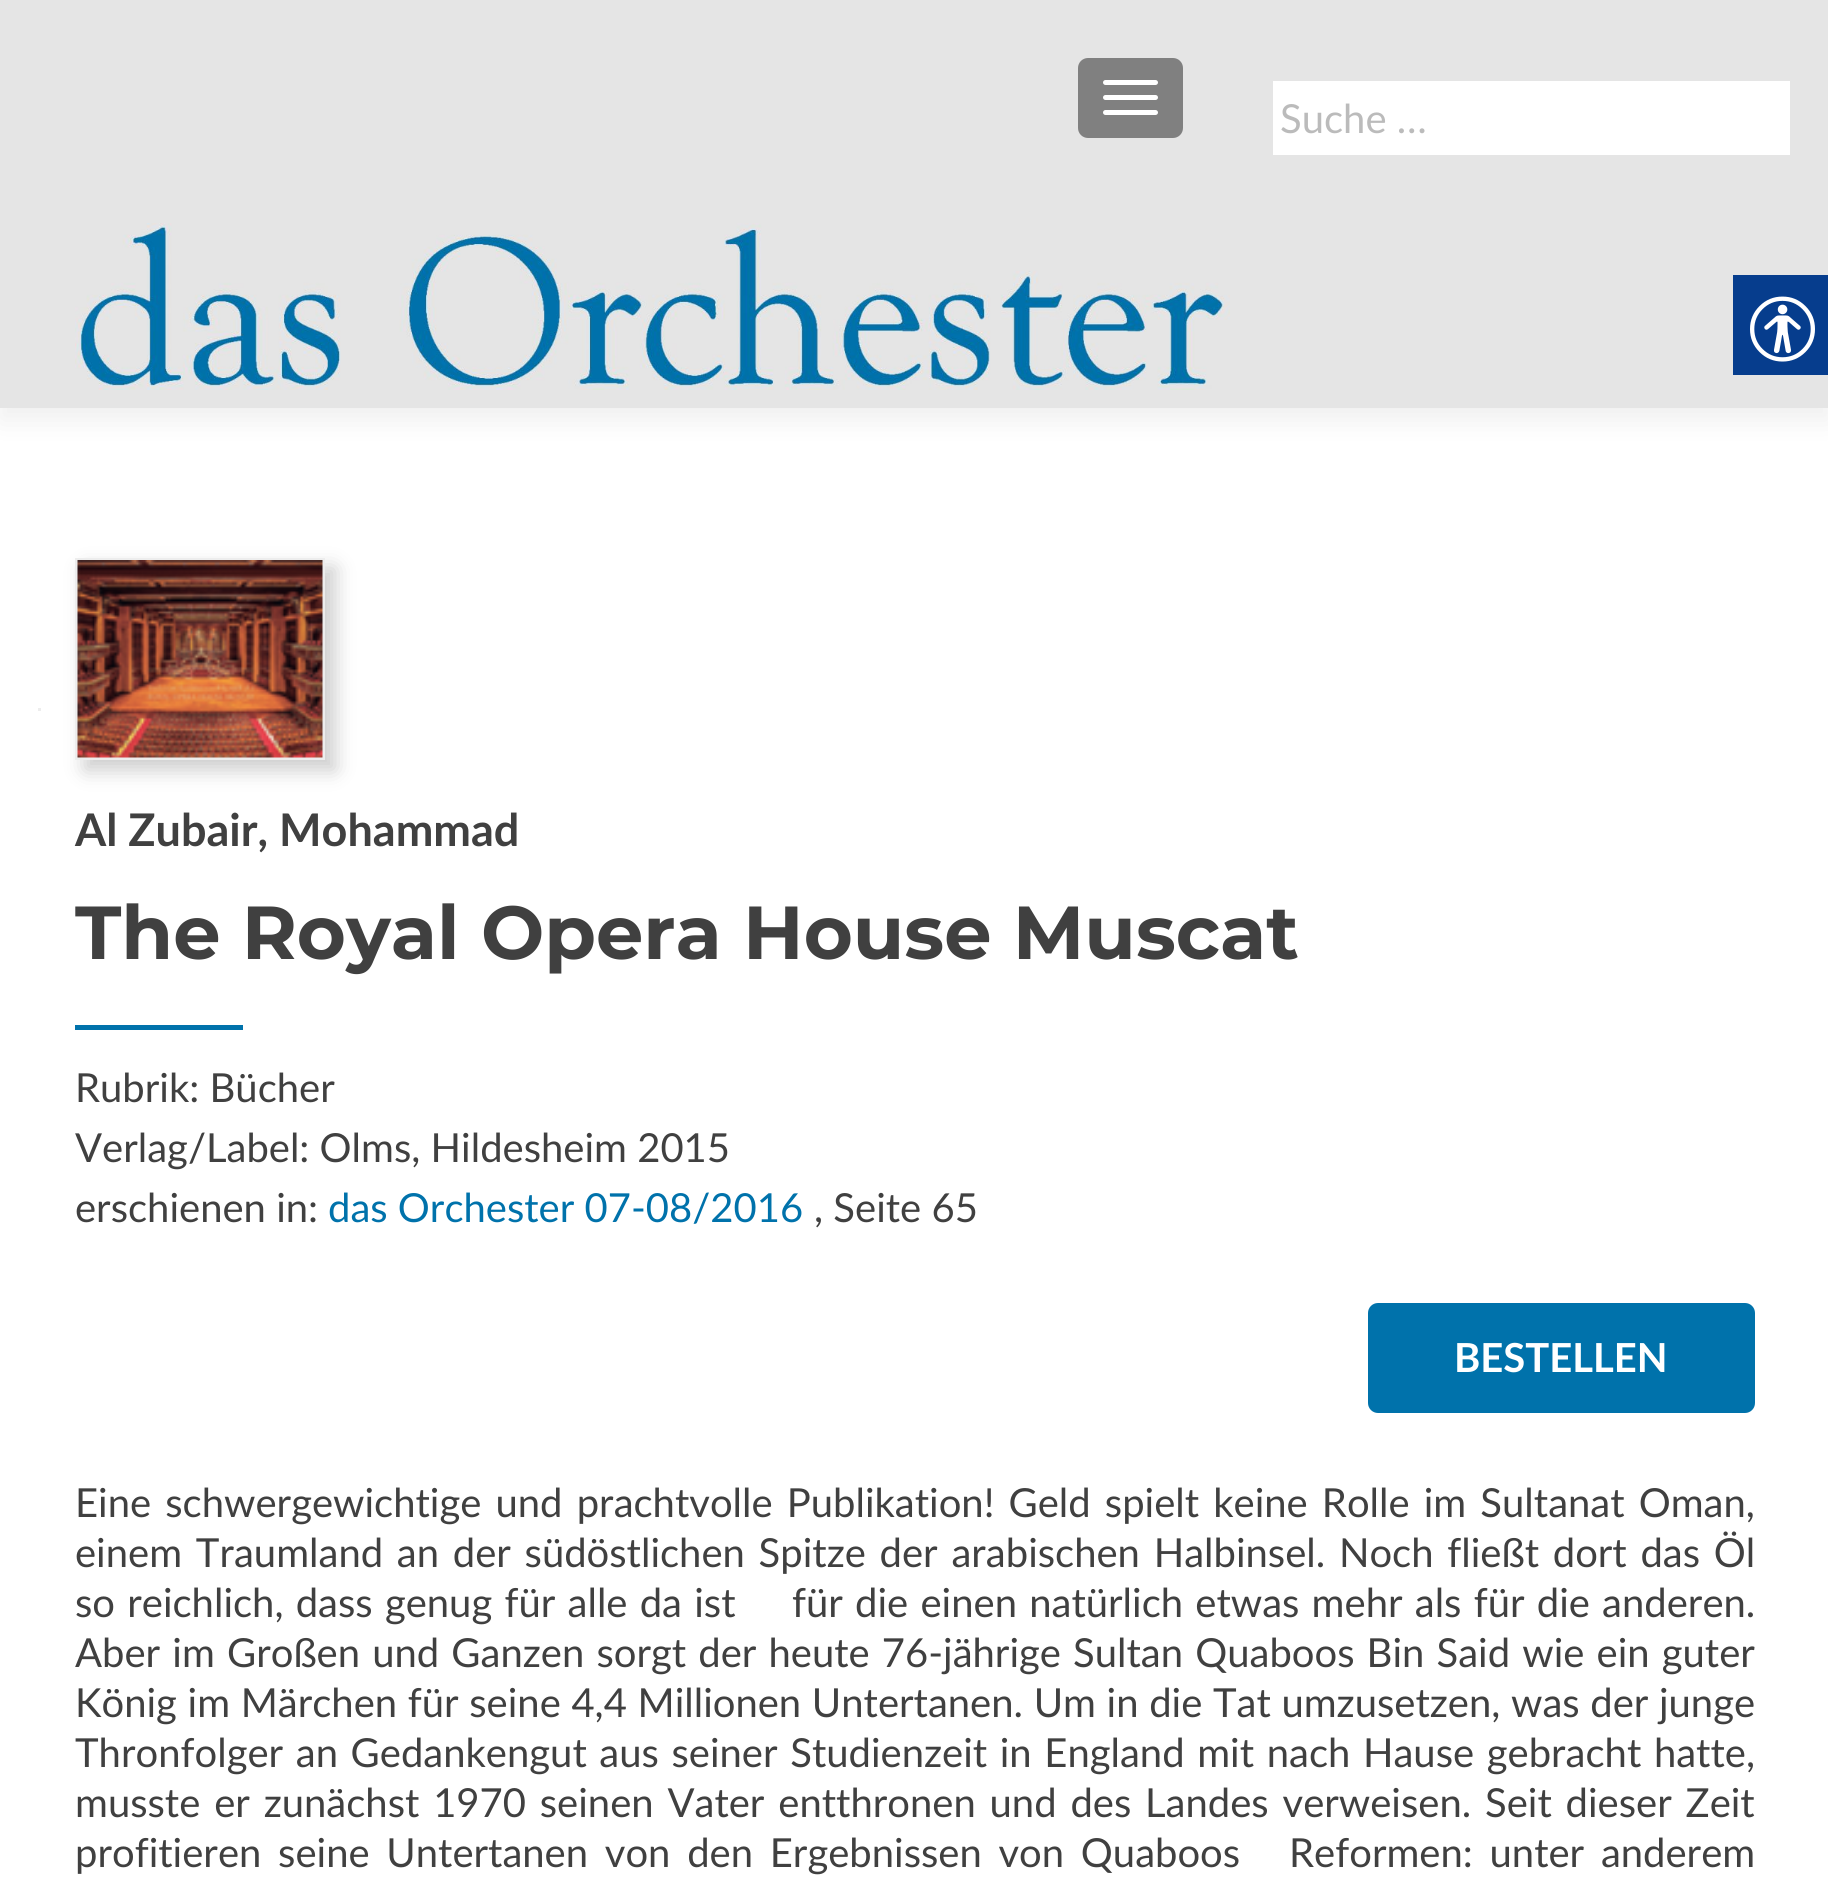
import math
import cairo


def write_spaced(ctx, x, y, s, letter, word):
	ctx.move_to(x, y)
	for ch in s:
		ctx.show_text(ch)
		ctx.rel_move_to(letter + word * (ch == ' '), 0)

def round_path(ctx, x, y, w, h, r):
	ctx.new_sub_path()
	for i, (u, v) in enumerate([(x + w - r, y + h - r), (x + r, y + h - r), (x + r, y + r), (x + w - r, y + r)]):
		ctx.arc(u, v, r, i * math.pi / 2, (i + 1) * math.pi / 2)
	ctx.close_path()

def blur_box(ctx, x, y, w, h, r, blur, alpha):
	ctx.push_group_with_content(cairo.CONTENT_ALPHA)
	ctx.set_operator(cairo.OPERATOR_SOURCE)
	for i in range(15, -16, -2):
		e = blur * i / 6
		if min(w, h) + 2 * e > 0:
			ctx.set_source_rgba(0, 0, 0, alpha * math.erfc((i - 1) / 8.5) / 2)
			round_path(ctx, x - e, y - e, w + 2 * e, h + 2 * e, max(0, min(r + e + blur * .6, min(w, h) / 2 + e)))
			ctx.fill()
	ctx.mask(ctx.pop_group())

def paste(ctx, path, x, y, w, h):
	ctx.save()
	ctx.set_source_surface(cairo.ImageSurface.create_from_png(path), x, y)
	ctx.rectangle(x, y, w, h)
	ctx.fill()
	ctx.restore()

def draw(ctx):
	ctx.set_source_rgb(1, 1, 1)
	ctx.paint()
	ctx.set_source_rgb(0.196, 0.196, 0.196)
	blur_box(ctx, 0, 13, 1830, 407, 0, 14, 0.08)
	ctx.set_source_rgb(0.898, 0.898, 0.898)
	ctx.rectangle(0, 0, 1828, 408)
	ctx.fill()
	ctx.set_source_rgb(0.502, 0.502, 0.502)
	round_path(ctx, 1078, 58, 105, 80, 10)
	ctx.fill()
	ctx.set_source_rgb(1, 1, 1)
	round_path(ctx, 1103, 80, 55, 5, 2.5)
	ctx.fill()
	round_path(ctx, 1103, 95, 55, 5, 2.5)
	ctx.fill()
	round_path(ctx, 1103, 110, 55, 5, 2.5)
	ctx.fill()
	paste(ctx, 'media/1.png', 75, 223, 1155, 167)
	ctx.rectangle(1273, 81, 517, 74)
	ctx.fill()
	ctx.select_font_face('Lato')
	ctx.set_font_size(40)
	ctx.set_source_rgb(0.733, 0.733, 0.733)
	ctx.move_to(1280, 133)
	ctx.show_text('Suche …')
	ctx.set_source_rgb(0.929, 0.929, 0.929)
	ctx.rectangle(38, 708, 3, 3)
	ctx.fill()
	ctx.set_source_rgb(0.392, 0.392, 0.392)
	blur_box(ctx, 85, 568, 250, 202, 0, 10, 0.33)
	ctx.rectangle(76.5, 559.5, 247, 199)
	ctx.set_source_rgb(0.929, 0.929, 0.929)
	ctx.set_line_width(3)
	ctx.stroke()
	paste(ctx, 'media/2.png', 77, 560, 246, 198)
	ctx.select_font_face('Lato', cairo.FONT_SLANT_NORMAL, cairo.FONT_WEIGHT_BOLD)
	ctx.set_font_size(45)
	ctx.set_source_rgb(0.251, 0.251, 0.251)
	ctx.move_to(75, 846)
	ctx.show_text('Al Zubair, Mohammad')
	ctx.select_font_face('Montserrat', cairo.FONT_SLANT_NORMAL, cairo.FONT_WEIGHT_BOLD)
	ctx.set_font_size(75)
	ctx.move_to(75, 959)
	ctx.show_text('The Royal Opera House Muscat')
	ctx.set_source_rgb(0, 0.447, 0.671)
	ctx.rectangle(75, 1025, 168, 5)
	ctx.fill()
	ctx.select_font_face('Lato')
	ctx.set_font_size(40)
	ctx.set_source_rgb(0.251, 0.251, 0.251)
	for x, y, s in [
		(75, 1102, 'Rubrik: Bücher'),
		(75, 1162, 'Verlag/Label: Olms, Hildesheim 2015'),
		(75, 1222, 'erschienen in:'),
	]:
		ctx.move_to(x, y)
		ctx.show_text(s)
	ctx.set_source_rgb(0, 0.447, 0.671)
	ctx.move_to(328, 1222)
	ctx.show_text('das Orchester 07-08/2016')
	ctx.set_source_rgb(0.251, 0.251, 0.251)
	ctx.move_to(814, 1222)
	ctx.show_text(', Seite 65')
	ctx.set_source_rgb(0, 0.447, 0.671)
	round_path(ctx, 1368, 1303, 387, 110, 10)
	ctx.fill()
	ctx.select_font_face('Lato', cairo.FONT_SLANT_NORMAL, cairo.FONT_WEIGHT_BOLD)
	ctx.set_source_rgb(1, 1, 1)
	ctx.move_to(1454, 1372)
	ctx.show_text('BESTELLEN')
	ctx.select_font_face('Lato')
	ctx.set_source_rgb(0.251, 0.251, 0.251)
	write_spaced(ctx, 75, 1517, 'Eine schwergewichtige und prachtvolle Publikation! Geld spielt keine Rolle im Sultanat Oman,', 0, 3.9)
	write_spaced(ctx, 75, 1567, 'einem Traumland an der südöstlichen Spitze der arabischen Halbinsel. Noch fließt dort das Öl', 0, 3.5)
	write_spaced(ctx, 75, 1617, 'so reichlich, dass genug für alle da ist', 0, 2)
	write_spaced(ctx, 792, 1617, 'für die einen natürlich etwas mehr als für die anderen.', 0, 2)
	write_spaced(ctx, 75, 1667, 'Aber im Großen und Ganzen sorgt der heute 76-jährige Sultan Quaboos Bin Said wie ein guter', 0, 1.9)
	write_spaced(ctx, 75, 1717, 'König im Märchen für seine 4,4 Millionen Untertanen. Um in die Tat umzusetzen, was der junge', 0, 0.4)
	write_spaced(ctx, 75, 1767, 'Thronfolger an Gedankengut aus seiner Studienzeit in England mit nach Hause gebracht hatte,', 0, 2.4)
	write_spaced(ctx, 75, 1817, 'musste er zunächst 1970 seinen Vater entthronen und des Landes verweisen. Seit dieser Zeit', 0, 3.6)
	write_spaced(ctx, 75, 1867, 'profitieren seine Untertanen von den Ergebnissen von Quaboos', 0, 6.5)
	write_spaced(ctx, 1289, 1867, 'Reformen: unter anderem', 0, 6.5)
	ctx.set_source_rgb(0.024, 0.239, 0.553)
	ctx.rectangle(1733, 275, 95, 100)
	ctx.fill()
	paste(ctx, 'media/3.png', 1750, 296, 65, 66)


surface = cairo.ImageSurface(cairo.FORMAT_RGB24, 1828, 1903)
ctx = cairo.Context(surface)
options = cairo.FontOptions()
options.set_hint_metrics(cairo.HINT_METRICS_OFF)
options.set_hint_style(cairo.HINT_STYLE_NONE)
ctx.set_font_options(options)
ctx.set_miter_limit(4)
draw(ctx)
surface.write_to_png('image.png')
